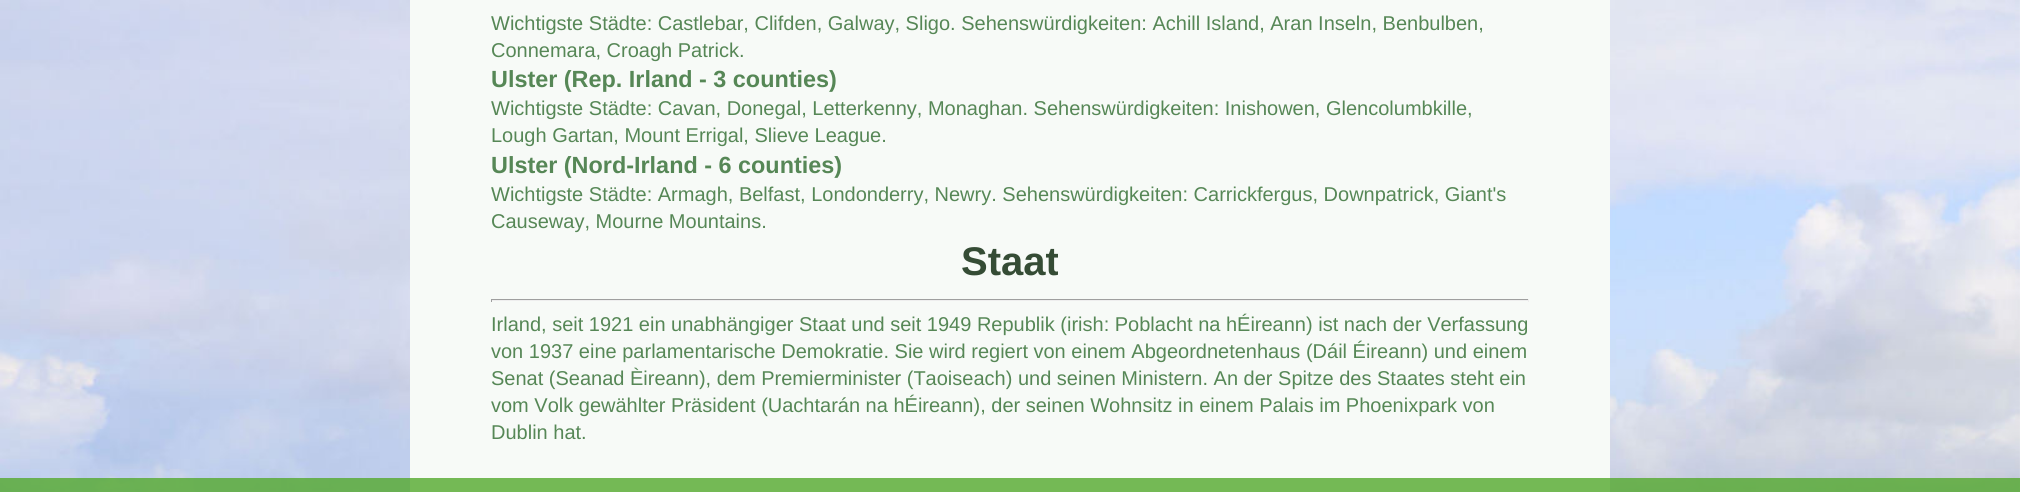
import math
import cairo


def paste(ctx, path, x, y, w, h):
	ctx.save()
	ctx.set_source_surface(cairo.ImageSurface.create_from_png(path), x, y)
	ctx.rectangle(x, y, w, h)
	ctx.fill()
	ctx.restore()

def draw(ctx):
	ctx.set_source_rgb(1, 1, 1)
	ctx.paint()
	paste(ctx, 'media/1.png', 0, 0, 2020, 492)
	ctx.set_source_rgb(0.965, 0.98, 0.965)
	ctx.rectangle(410, 0, 1200, 492)
	ctx.fill()
	ctx.select_font_face('Liberation Sans')
	ctx.set_font_size(20)
	ctx.set_source_rgb(0.337, 0.529, 0.337)
	ctx.move_to(491, 30)
	ctx.show_text('Wichtigste Städte: Castlebar, Clifden, Galway, Sligo. Sehenswürdigkeiten: Achill Island, Aran Inseln, Benbulben,')
	ctx.move_to(491, 57)
	ctx.show_text('Connemara, Croagh Patrick.')
	ctx.select_font_face('Liberation Sans', cairo.FONT_SLANT_NORMAL, cairo.FONT_WEIGHT_BOLD)
	ctx.set_font_size(23.4)
	ctx.move_to(491, 87)
	ctx.show_text('Ulster (Rep. Irland - 3 counties)')
	ctx.select_font_face('Liberation Sans')
	ctx.set_font_size(20)
	ctx.move_to(491, 115)
	ctx.show_text('Wichtigste Städte: Cavan, Donegal, Letterkenny, Monaghan. Sehenswürdigkeiten: Inishowen, Glencolumbkille,')
	ctx.move_to(491, 142)
	ctx.show_text('Lough Gartan, Mount Errigal, Slieve League.')
	ctx.select_font_face('Liberation Sans', cairo.FONT_SLANT_NORMAL, cairo.FONT_WEIGHT_BOLD)
	ctx.set_font_size(23.4)
	ctx.move_to(491, 173)
	ctx.show_text('Ulster (Nord-Irland - 6 counties)')
	ctx.select_font_face('Liberation Sans')
	ctx.set_font_size(20)
	ctx.move_to(491, 201)
	ctx.show_text('Wichtigste Städte: Armagh, Belfast, Londonderry, Newry. Sehenswürdigkeiten: Carrickfergus, Downpatrick, Giant\'s')
	ctx.move_to(491, 228)
	ctx.show_text('Causeway, Mourne Mountains.')
	ctx.select_font_face('Liberation Sans', cairo.FONT_SLANT_NORMAL, cairo.FONT_WEIGHT_BOLD)
	ctx.set_font_size(40)
	ctx.set_source_rgb(0.208, 0.298, 0.208)
	ctx.move_to(961, 275)
	ctx.show_text('Staat')
	ctx.set_source_rgb(0.624, 0.624, 0.624)
	ctx.rectangle(491, 299, 1038, 1)
	ctx.fill()
	ctx.set_source_rgb(0.933, 0.933, 0.933)
	ctx.rectangle(1528, 299, 1, 3)
	ctx.rectangle(491, 300, 1038, 1)
	ctx.fill()
	ctx.set_source_rgb(0.624, 0.624, 0.624)
	ctx.rectangle(491, 299, 1, 3)
	ctx.fill()
	ctx.select_font_face('Liberation Sans')
	ctx.set_font_size(20)
	ctx.set_source_rgb(0.337, 0.529, 0.337)
	for x, y, s in [
		(491, 331, 'Irland, seit 1921 ein unabhängiger Staat und seit 1949 Republik (irish: Poblacht na hÉireann) ist nach der Verfassung'),
		(491, 358, 'von 1937 eine parlamentarische Demokratie. Sie wird regiert von einem Abgeordnetenhaus (Dáil Éireann) und einem'),
		(491, 385, 'Senat (Seanad Èireann), dem Premierminister (Taoiseach) und seinen Ministern. An der Spitze des Staates steht ein'),
		(491, 412, 'vom Volk gewählter Präsident (Uachtarán na hÉireann), der seinen Wohnsitz in einem Palais im Phoenixpark von'),
		(491, 439, 'Dublin hat.'),
	]:
		ctx.move_to(x, y)
		ctx.show_text(s)
	ctx.set_source_rgba(0.329, 0.663, 0.18, 0.8)
	ctx.rectangle(0, 478, 2020, 14)
	ctx.fill()


surface = cairo.ImageSurface(cairo.FORMAT_RGB24, 2020, 492)
ctx = cairo.Context(surface)
options = cairo.FontOptions()
options.set_hint_metrics(cairo.HINT_METRICS_OFF)
options.set_hint_style(cairo.HINT_STYLE_NONE)
ctx.set_font_options(options)
ctx.set_miter_limit(4)
draw(ctx)
surface.write_to_png('image.png')
